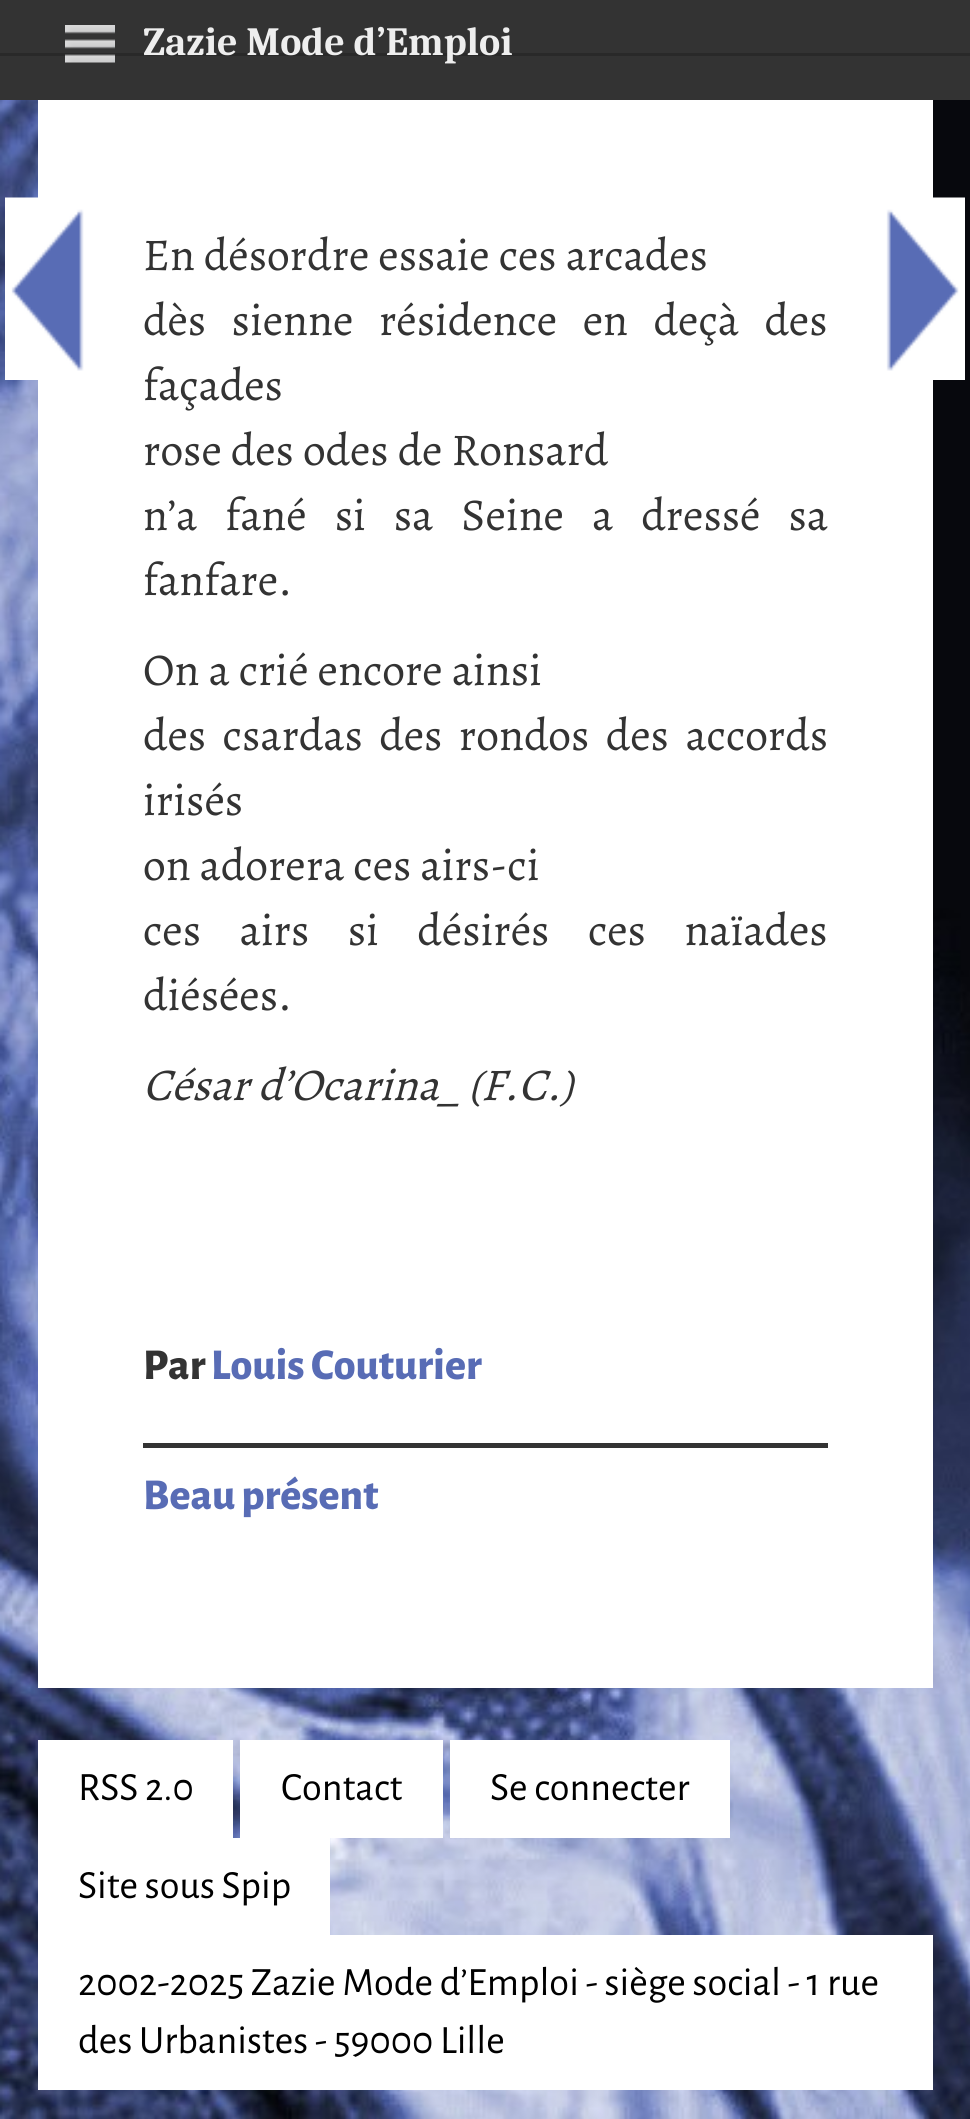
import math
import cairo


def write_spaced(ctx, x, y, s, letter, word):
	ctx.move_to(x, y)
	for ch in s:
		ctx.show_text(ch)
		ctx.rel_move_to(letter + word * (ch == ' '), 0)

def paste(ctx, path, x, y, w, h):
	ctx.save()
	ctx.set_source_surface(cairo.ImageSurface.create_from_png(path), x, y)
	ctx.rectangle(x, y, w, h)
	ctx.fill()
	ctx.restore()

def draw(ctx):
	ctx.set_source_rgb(1, 1, 1)
	ctx.paint()
	paste(ctx, 'media/1.png', 0, 100, 970, 2019)
	ctx.set_source_rgb(0.2, 0.2, 0.2)
	ctx.rectangle(0, 0, 970, 100)
	ctx.fill()
	ctx.set_source_rgb(0.161, 0.161, 0.161)
	ctx.rectangle(0, 53, 970, 3)
	ctx.fill()
	paste(ctx, 'media/2.png', 65, 25, 50, 38)
	ctx.select_font_face('Caladea', cairo.FONT_SLANT_NORMAL, cairo.FONT_WEIGHT_BOLD)
	ctx.set_font_size(40)
	ctx.set_source_rgb(0.933, 0.933, 0.933)
	ctx.move_to(143, 55)
	ctx.show_text('Zazie Mode d’Emploi')
	ctx.set_source_rgb(1, 1, 1)
	ctx.rectangle(38, 100, 895, 1588)
	ctx.fill()
	ctx.set_source_rgb(0.345, 0.424, 0.71)
	ctx.rectangle(11, 209, 73, 162)
	ctx.fill()
	paste(ctx, 'media/3.png', 5, 197, 95, 183)
	ctx.rectangle(886, 209, 73, 162)
	ctx.fill()
	paste(ctx, 'media/4.png', 870, 197, 95, 183)
	ctx.select_font_face('Alegreya')
	ctx.set_font_size(45.5)
	ctx.set_source_rgb(0.2, 0.2, 0.2)
	ctx.move_to(143, 270)
	ctx.show_text('En désordre essaie ces arcades')
	write_spaced(ctx, 143, 335, 'dès sienne résidence en deçà des', 0, 16.5)
	ctx.move_to(143, 400)
	ctx.show_text('façades')
	ctx.move_to(143, 465)
	ctx.show_text('rose des odes de Ronsard')
	write_spaced(ctx, 143, 530, 'n’a fané si sa Seine a dressé sa', 0, 19)
	ctx.move_to(143, 595)
	ctx.show_text('fanfare.')
	ctx.move_to(143, 685)
	ctx.show_text('On a crié encore ainsi')
	write_spaced(ctx, 143, 750, 'des csardas des rondos des accords', 0, 7.5)
	ctx.move_to(143, 815)
	ctx.show_text('irisés')
	ctx.move_to(143, 880)
	ctx.show_text('on adorera ces airs-ci')
	write_spaced(ctx, 143, 945, 'ces airs si désirés ces naïades', 0, 29.5)
	ctx.move_to(143, 1010)
	ctx.show_text('diésées.')
	ctx.select_font_face('Alegreya', cairo.FONT_SLANT_ITALIC)
	ctx.move_to(143, 1100)
	ctx.show_text('César d’Ocarina_ (F.C.)')
	ctx.select_font_face('Alegreya Sans ExtraBold')
	ctx.set_font_size(44)
	ctx.move_to(143, 1379)
	ctx.show_text('Par')
	ctx.set_source_rgb(0.345, 0.424, 0.71)
	ctx.move_to(211, 1379)
	ctx.show_text('Louis Couturier')
	ctx.set_source_rgb(0.2, 0.2, 0.2)
	ctx.rectangle(143, 1443, 685, 5)
	ctx.fill()
	ctx.set_source_rgb(0.345, 0.424, 0.71)
	ctx.move_to(143, 1509)
	ctx.show_text('Beau présent')
	ctx.set_source_rgb(1, 1, 1)
	ctx.rectangle(38, 1740, 195, 98)
	ctx.fill()
	ctx.select_font_face('Alegreya Sans')
	ctx.set_font_size(40.25)
	ctx.set_source_rgb(0, 0, 0)
	ctx.move_to(78, 1800)
	ctx.show_text('RSS 2.0')
	ctx.set_source_rgb(1, 1, 1)
	ctx.rectangle(240, 1740, 203, 98)
	ctx.fill()
	ctx.set_source_rgb(0, 0, 0)
	ctx.move_to(281, 1800)
	ctx.show_text('Contact')
	ctx.set_source_rgb(1, 1, 1)
	ctx.rectangle(450, 1740, 280, 98)
	ctx.fill()
	ctx.set_source_rgb(0, 0, 0)
	ctx.move_to(490, 1800)
	ctx.show_text('Se connecter')
	ctx.set_source_rgb(1, 1, 1)
	ctx.rectangle(38, 1838, 292, 97)
	ctx.fill()
	ctx.set_source_rgb(0, 0, 0)
	ctx.move_to(78, 1898)
	ctx.show_text('Site sous Spip')
	ctx.set_source_rgb(1, 1, 1)
	ctx.rectangle(38, 1935, 895, 155)
	ctx.fill()
	ctx.set_source_rgb(0, 0, 0)
	ctx.move_to(78, 1995)
	ctx.show_text('2002-2025 Zazie Mode d’Emploi - siège social - 1 rue')
	ctx.move_to(78, 2053)
	ctx.show_text('des Urbanistes - 59000 Lille')


surface = cairo.ImageSurface(cairo.FORMAT_RGB24, 970, 2119)
ctx = cairo.Context(surface)
options = cairo.FontOptions()
options.set_hint_metrics(cairo.HINT_METRICS_OFF)
options.set_hint_style(cairo.HINT_STYLE_NONE)
ctx.set_font_options(options)
ctx.set_miter_limit(4)
draw(ctx)
surface.write_to_png('image.png')
